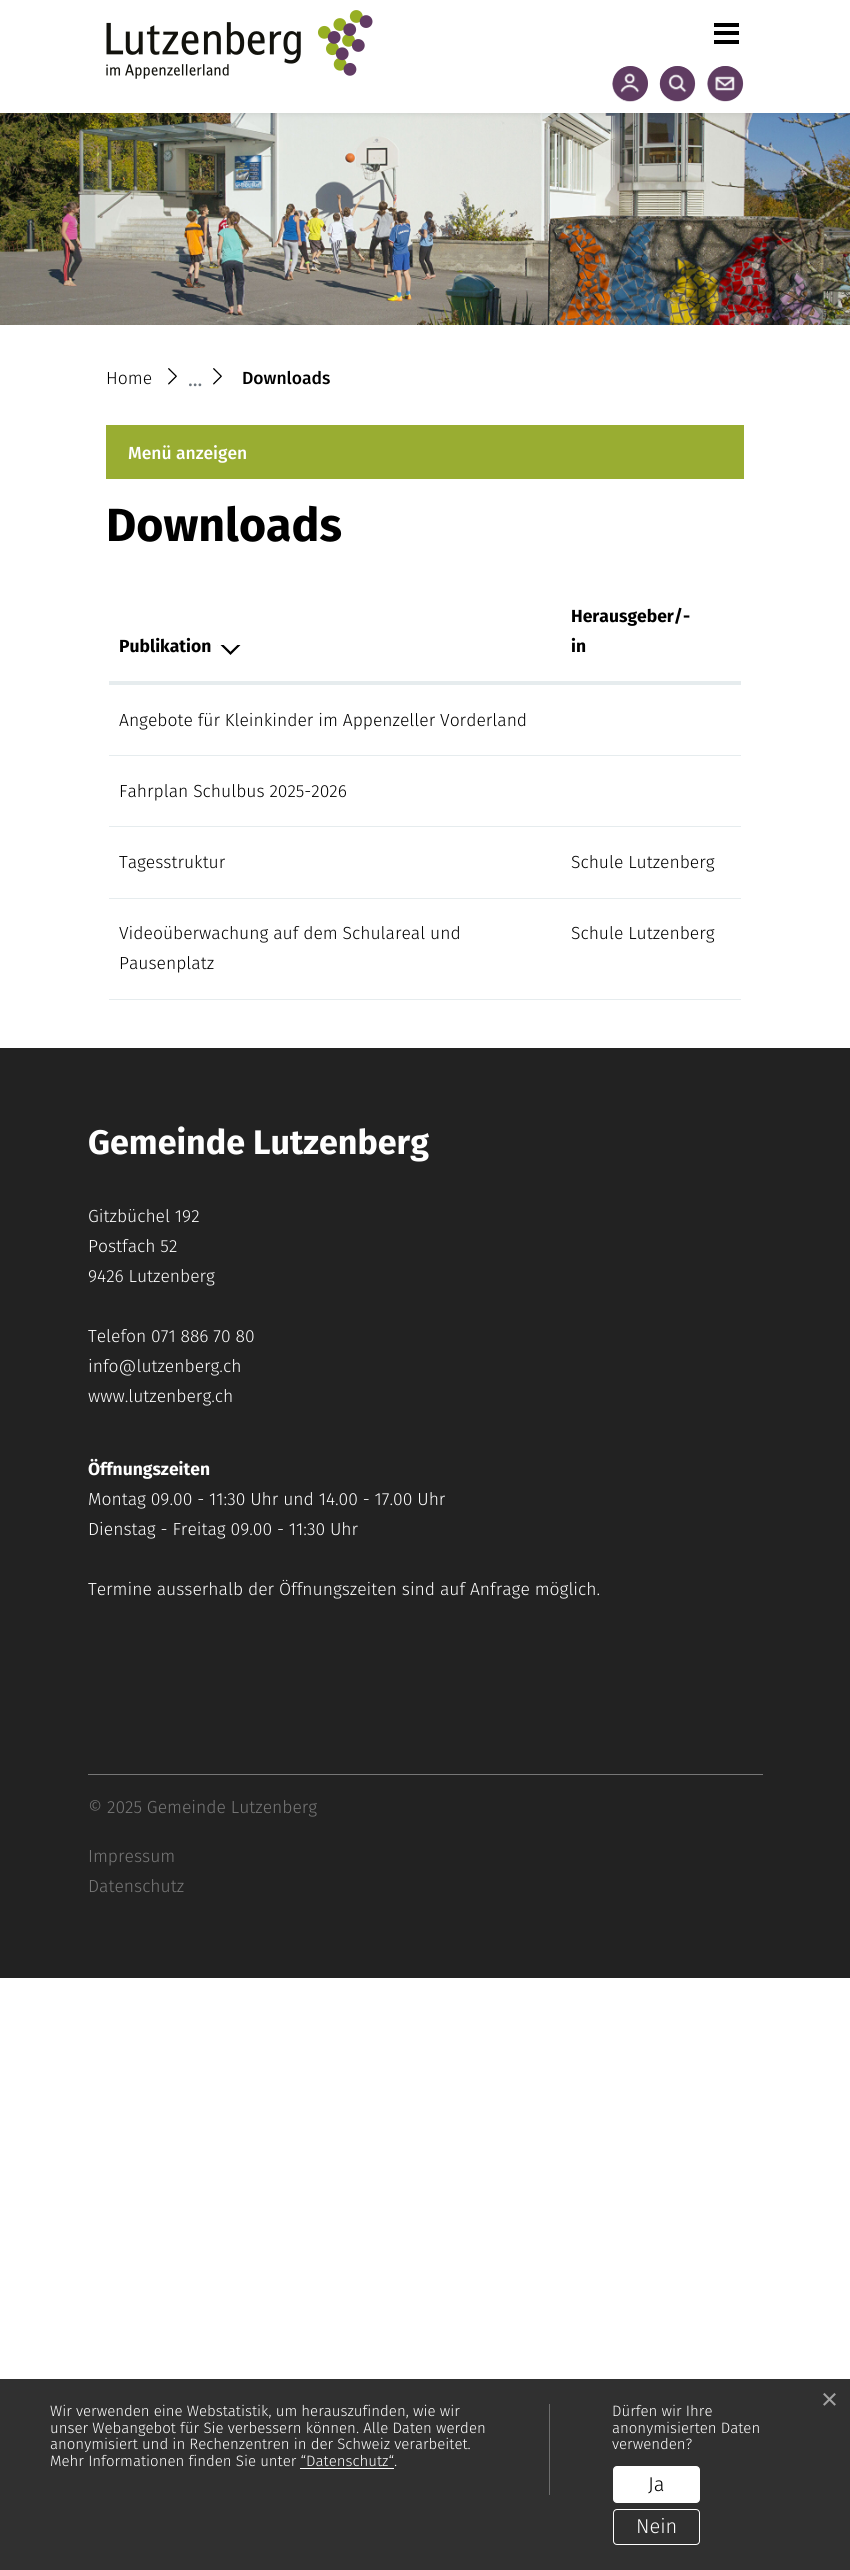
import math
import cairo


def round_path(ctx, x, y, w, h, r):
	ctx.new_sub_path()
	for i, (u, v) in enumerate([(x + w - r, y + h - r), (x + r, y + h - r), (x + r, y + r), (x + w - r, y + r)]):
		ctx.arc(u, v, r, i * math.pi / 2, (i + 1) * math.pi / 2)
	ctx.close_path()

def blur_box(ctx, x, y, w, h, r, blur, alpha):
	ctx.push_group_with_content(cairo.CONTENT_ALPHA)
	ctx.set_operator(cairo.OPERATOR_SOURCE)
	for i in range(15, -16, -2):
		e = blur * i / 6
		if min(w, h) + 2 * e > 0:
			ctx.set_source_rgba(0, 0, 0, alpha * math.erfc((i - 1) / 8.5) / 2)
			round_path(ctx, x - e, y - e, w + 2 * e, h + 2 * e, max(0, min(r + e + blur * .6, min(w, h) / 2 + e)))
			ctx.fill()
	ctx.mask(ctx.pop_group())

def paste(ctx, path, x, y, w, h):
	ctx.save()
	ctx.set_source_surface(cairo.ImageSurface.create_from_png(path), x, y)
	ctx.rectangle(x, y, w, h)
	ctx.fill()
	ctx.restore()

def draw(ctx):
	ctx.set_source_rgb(1, 1, 1)
	ctx.paint()
	paste(ctx, 'media/5.png', 0, 113, 850, 212)
	ctx.set_source_rgb(0, 0, 0)
	blur_box(ctx, 0, 3, 850, 112, 0, 2.5, 0.07)
	ctx.set_source_rgb(1, 1, 1)
	ctx.rectangle(0, 0, 850, 113)
	ctx.fill()
	paste(ctx, 'media/1.png', 106, 10, 267, 69)
	ctx.set_source_rgb(0, 0, 0)
	ctx.rectangle(714, 23, 25, 4)
	ctx.rectangle(714, 31, 25, 4)
	ctx.rectangle(714, 40, 25, 4)
	ctx.fill()
	ctx.set_source_rgb(0.376, 0.239, 0.388)
	ctx.arc(630.5, 83.5, 17.5, 0, 2 * math.pi)
	ctx.fill()
	paste(ctx, 'media/2.png', 612, 66, 36, 36)
	ctx.arc(677.5, 83.5, 17.5, 0, 2 * math.pi)
	ctx.fill()
	paste(ctx, 'media/3.png', 659, 66, 37, 36)
	ctx.arc(725.5, 83.5, 17.5, 0, 2 * math.pi)
	ctx.fill()
	paste(ctx, 'media/4.png', 707, 66, 37, 36)
	ctx.select_font_face('Fira Sans Light')
	ctx.set_font_size(17.5)
	ctx.set_source_rgb(0, 0, 0)
	ctx.move_to(106, 384)
	ctx.show_text('Home')
	paste(ctx, 'media/6.png', 168, 368, 54, 17)
	ctx.select_font_face('Fira Sans')
	ctx.set_font_size(20)
	ctx.set_source_rgb(0.424, 0.459, 0.49)
	ctx.move_to(188, 386)
	ctx.show_text('...')
	ctx.select_font_face('Fira Sans Medium')
	ctx.set_font_size(17.5)
	ctx.set_source_rgb(0, 0, 0)
	ctx.move_to(242, 384)
	ctx.show_text('Downloads')
	ctx.set_source_rgb(0.6, 0.678, 0.196)
	ctx.rectangle(106, 425, 638, 54)
	ctx.fill()
	ctx.set_source_rgb(1, 1, 1)
	ctx.move_to(128, 459)
	ctx.show_text('Menü anzeigen')
	ctx.select_font_face('Fira Sans', cairo.FONT_SLANT_NORMAL, cairo.FONT_WEIGHT_BOLD)
	ctx.set_font_size(46.5)
	ctx.set_source_rgb(0, 0, 0)
	ctx.move_to(106, 541)
	ctx.show_text('Downloads')
	ctx.set_source_rgb(0.902, 0.925, 0.933)
	ctx.rectangle(109, 999, 632, 1)
	ctx.fill()
	ctx.rectangle(109, 681, 632, 3)
	ctx.fill()
	ctx.set_font_size(17.5)
	ctx.set_source_rgb(0, 0, 0)
	ctx.move_to(119, 652)
	ctx.show_text('Publikation')
	paste(ctx, 'media/7.png', 217, 645, 24, 10)
	ctx.move_to(571, 622)
	ctx.show_text('Herausgeber/-')
	ctx.move_to(571, 652)
	ctx.show_text('in')
	ctx.set_source_rgb(0.902, 0.925, 0.933)
	ctx.rectangle(109, 684, 632, 1)
	ctx.fill()
	ctx.select_font_face('Fira Sans Light')
	ctx.set_source_rgb(0, 0, 0)
	ctx.move_to(119, 726)
	ctx.show_text('Angebote für Kleinkinder im Appenzeller Vorderland')
	ctx.set_source_rgb(0.902, 0.925, 0.933)
	ctx.rectangle(109, 755, 632, 1)
	ctx.fill()
	ctx.set_source_rgb(0, 0, 0)
	ctx.move_to(119, 797)
	ctx.show_text('Fahrplan Schulbus 2025-2026')
	ctx.set_source_rgb(0.902, 0.925, 0.933)
	ctx.rectangle(109, 826, 632, 1)
	ctx.fill()
	ctx.set_source_rgb(0, 0, 0)
	ctx.move_to(119, 868)
	ctx.show_text('Tagesstruktur')
	ctx.move_to(571, 868)
	ctx.show_text('Schule Lutzenberg')
	ctx.set_source_rgb(0.902, 0.925, 0.933)
	ctx.rectangle(109, 898, 632, 1)
	ctx.fill()
	ctx.set_source_rgb(0, 0, 0)
	for x, y, s in [
		(119, 939, 'Videoüberwachung auf dem Schulareal und'),
		(119, 969, 'Pausenplatz'),
		(571, 939, 'Schule Lutzenberg'),
	]:
		ctx.move_to(x, y)
		ctx.show_text(s)
	ctx.set_source_rgb(0.133, 0.133, 0.133)
	ctx.rectangle(0, 1048, 850, 930)
	ctx.fill()
	ctx.select_font_face('Fira Sans', cairo.FONT_SLANT_NORMAL, cairo.FONT_WEIGHT_BOLD)
	ctx.set_font_size(34.1)
	ctx.set_source_rgb(1, 1, 1)
	ctx.move_to(88, 1154)
	ctx.show_text('Gemeinde Lutzenberg')
	ctx.select_font_face('Fira Sans Light')
	ctx.set_font_size(17.5)
	for x, y, s in [
		(88, 1222, 'Gitzbüchel 192'),
		(88, 1252, 'Postfach 52'),
		(88, 1282, '9426 Lutzenberg'),
		(88, 1342, 'Telefon 071 886 70 80'),
		(88, 1372, 'info@lutzenberg.ch'),
		(88, 1402, 'www.lutzenberg.ch'),
	]:
		ctx.move_to(x, y)
		ctx.show_text(s)
	ctx.select_font_face('Fira Sans', cairo.FONT_SLANT_NORMAL, cairo.FONT_WEIGHT_BOLD)
	ctx.move_to(88, 1475)
	ctx.show_text('Öffnungszeiten')
	ctx.select_font_face('Fira Sans Light')
	for x, y, s in [
		(88, 1505, 'Montag 09.00 - 11:30 Uhr und 14.00 - 17.00 Uhr'),
		(88, 1535, 'Dienstag - Freitag 09.00 - 11:30 Uhr'),
		(88, 1595, 'Termine ausserhalb der Öffnungszeiten sind auf Anfrage möglich.'),
	]:
		ctx.move_to(x, y)
		ctx.show_text(s)
	ctx.set_source_rgb(0.467, 0.467, 0.467)
	ctx.rectangle(88, 1774, 675, 1)
	ctx.fill()
	for x, y, s in [
		(88, 1813, '© 2025 Gemeinde Lutzenberg'),
		(88, 1862, 'Impressum'),
		(88, 1892, 'Datenschutz'),
	]:
		ctx.move_to(x, y)
		ctx.show_text(s)
	ctx.set_source_rgb(0.188, 0.188, 0.188)
	ctx.rectangle(0, 2379, 850, 191)
	ctx.fill()
	ctx.select_font_face('Liberation Sans')
	ctx.set_font_size(29)
	ctx.set_source_rgb(0.635, 0.635, 0.635)
	ctx.move_to(821, 2409)
	ctx.show_text('×')
	ctx.set_source_rgb(0.427, 0.427, 0.427)
	ctx.rectangle(549, 2404, 1, 91)
	ctx.fill()
	ctx.select_font_face('Fira Sans Light')
	ctx.set_font_size(15)
	ctx.set_source_rgb(1, 1, 1)
	for x, y, s in [
		(50, 2416, 'Wir verwenden eine Webstatistik, um herauszufinden, wie wir'),
		(50, 2433, 'unser Webangebot für Sie verbessern können. Alle Daten werden'),
		(50, 2449, 'anonymisiert und in Rechenzentren in der Schweiz verarbeitet.'),
		(50, 2466, 'Mehr Informationen finden Sie unter “Datenschutz“.'),
	]:
		ctx.move_to(x, y)
		ctx.show_text(s)
	ctx.rectangle(300, 2468, 94, 1)
	ctx.fill()
	for x, y, s in [
		(612, 2416, 'Dürfen wir Ihre'),
		(612, 2433, 'anonymisierten Daten'),
		(612, 2449, 'verwenden?'),
	]:
		ctx.move_to(x, y)
		ctx.show_text(s)
	round_path(ctx, 613.5, 2466.5, 86, 36, 3.5)
	ctx.fill_preserve()
	ctx.set_line_width(1)
	ctx.stroke()
	ctx.set_font_size(20)
	ctx.set_source_rgb(0, 0, 0)
	ctx.move_to(648, 2491)
	ctx.show_text('Ja')
	round_path(ctx, 613.5, 2509.5, 86, 35, 3.5)
	ctx.set_source_rgb(1, 1, 1)
	ctx.stroke()
	ctx.move_to(636, 2533)
	ctx.show_text('Nein')


surface = cairo.ImageSurface(cairo.FORMAT_RGB24, 850, 2570)
ctx = cairo.Context(surface)
options = cairo.FontOptions()
options.set_hint_metrics(cairo.HINT_METRICS_OFF)
options.set_hint_style(cairo.HINT_STYLE_NONE)
ctx.set_font_options(options)
ctx.set_miter_limit(4)
draw(ctx)
surface.write_to_png('image.png')
